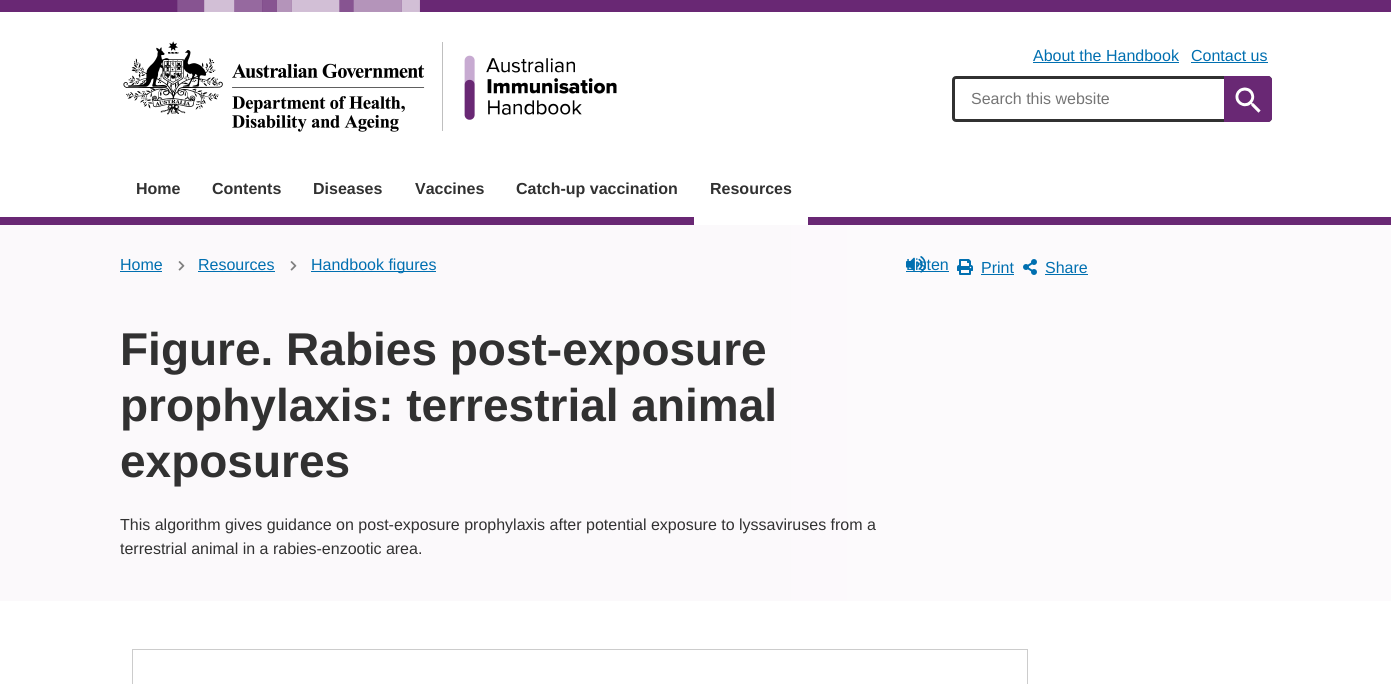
import math
import cairo


def round_path(ctx, x, y, w, h, r):
	ctx.new_sub_path()
	for i, (u, v) in enumerate([(x + w - r, y + h - r), (x + r, y + h - r), (x + r, y + r), (x + w - r, y + r)]):
		ctx.arc(u, v, r, i * math.pi / 2, (i + 1) * math.pi / 2)
	ctx.close_path()

def paste(ctx, path, x, y, w, h):
	ctx.save()
	ctx.set_source_surface(cairo.ImageSurface.create_from_png(path), x, y)
	ctx.rectangle(x, y, w, h)
	ctx.fill()
	ctx.restore()

def draw(ctx):
	ctx.set_source_rgb(1, 1, 1)
	ctx.paint()
	ctx.set_source_rgb(0.412, 0.157, 0.455)
	ctx.rectangle(0, 0, 1391, 12)
	ctx.fill()
	paste(ctx, 'media/1.png', 177, 0, 243, 12)
	paste(ctx, 'media/2.png', 123, 41, 494, 91)
	ctx.select_font_face('Liberation Sans')
	ctx.set_font_size(16)
	ctx.set_source_rgb(0, 0.435, 0.69)
	ctx.move_to(1033, 61)
	ctx.show_text('About the Handbook')
	ctx.rectangle(1033, 62, 146, 1)
	ctx.fill()
	ctx.move_to(1191, 61)
	ctx.show_text('Contact us')
	ctx.rectangle(1191, 62, 77, 1)
	ctx.fill()
	round_path(ctx, 953.5, 77.5, 317, 43, 2.5)
	ctx.set_source_rgb(0.192, 0.192, 0.192)
	ctx.set_line_width(3)
	ctx.stroke()
	ctx.set_source_rgb(0.459, 0.459, 0.459)
	ctx.move_to(971, 104)
	ctx.show_text('Search this website')
	ctx.set_source_rgb(0.412, 0.157, 0.455)
	ctx.new_path()
	ctx.move_to(1224, 76)
	ctx.line_to(1268, 76)
	ctx.curve_to(1270, 76, 1272, 78, 1272, 80)
	ctx.line_to(1272, 118)
	ctx.curve_to(1272, 120, 1270, 122, 1268, 122)
	ctx.line_to(1224, 122)
	ctx.close_path()
	ctx.fill()
	paste(ctx, 'media/3.png', 1235, 87, 26, 26)
	ctx.rectangle(0, 217, 1391, 8)
	ctx.fill()
	ctx.select_font_face('Liberation Sans', cairo.FONT_SLANT_NORMAL, cairo.FONT_WEIGHT_BOLD)
	ctx.set_source_rgb(0.192, 0.192, 0.192)
	for x, y, s in [
		(136, 194, 'Home'),
		(212, 194, 'Contents'),
		(313, 194, 'Diseases'),
		(415, 194, 'Vaccines'),
		(516, 194, 'Catch-up vaccination'),
	]:
		ctx.move_to(x, y)
		ctx.show_text(s)
	ctx.set_source_rgb(1, 1, 1)
	ctx.rectangle(694, 217, 114, 8)
	ctx.fill()
	ctx.set_source_rgb(0.192, 0.192, 0.192)
	ctx.move_to(710, 194)
	ctx.show_text('Resources')
	gradient = cairo.LinearGradient(1391, 413, 0, 413)
	gradient.add_color_stop_rgba(0, 0.988, 0.98, 0.988, 1)
	gradient.add_color_stop_rgba(1, 0.984, 0.976, 0.984, 1)
	ctx.set_source(gradient)
	ctx.rectangle(0, 225, 1391, 376)
	ctx.fill()
	ctx.select_font_face('Liberation Sans')
	ctx.set_source_rgb(0, 0.435, 0.69)
	ctx.move_to(120, 270)
	ctx.show_text('Home')
	ctx.rectangle(120, 271, 42, 1)
	ctx.fill()
	paste(ctx, 'media/4.png', 178, 261, 7, 10)
	ctx.move_to(198, 270)
	ctx.show_text('Resources')
	ctx.rectangle(198, 271, 77, 1)
	ctx.fill()
	paste(ctx, 'media/4.png', 290, 261, 7, 10)
	ctx.rectangle(311, 271, 125, 1)
	ctx.fill()
	ctx.move_to(311, 270)
	ctx.show_text('Handbook figures')
	ctx.select_font_face('Liberation Sans', cairo.FONT_SLANT_NORMAL, cairo.FONT_WEIGHT_BOLD)
	ctx.set_font_size(46)
	ctx.set_source_rgb(0.192, 0.192, 0.192)
	for x, y, s in [
		(120, 365, 'Figure. Rabies post-exposure'),
		(120, 421, 'prophylaxis: terrestrial animal'),
		(120, 477, 'exposures'),
	]:
		ctx.move_to(x, y)
		ctx.show_text(s)
	ctx.select_font_face('Liberation Sans')
	ctx.set_font_size(16)
	ctx.move_to(120, 530)
	ctx.show_text('This algorithm gives guidance on post-exposure prophylaxis after potential exposure to lyssaviruses from a')
	ctx.move_to(120, 554)
	ctx.show_text('terrestrial animal in a rabies-enzootic area.')
	paste(ctx, 'media/5.png', 906, 256, 20, 17)
	ctx.set_source_rgb(0, 0.435, 0.69)
	ctx.move_to(906, 270)
	ctx.show_text('Listen')
	ctx.rectangle(906, 271, 43, 1)
	ctx.fill()
	paste(ctx, 'media/6.png', 957, 259, 16, 16)
	ctx.move_to(981, 273)
	ctx.show_text('Print')
	ctx.rectangle(981, 274, 33, 1)
	ctx.fill()
	paste(ctx, 'media/7.png', 1023, 259, 14, 16)
	ctx.move_to(1045, 273)
	ctx.show_text('Share')
	ctx.rectangle(1045, 274, 43, 1)
	ctx.fill()
	ctx.rectangle(132.5, 649.5, 895, 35)
	ctx.set_source_rgb(0.8, 0.8, 0.8)
	ctx.set_line_width(1)
	ctx.stroke()


surface = cairo.ImageSurface(cairo.FORMAT_RGB24, 1391, 684)
ctx = cairo.Context(surface)
options = cairo.FontOptions()
options.set_hint_metrics(cairo.HINT_METRICS_OFF)
options.set_hint_style(cairo.HINT_STYLE_NONE)
ctx.set_font_options(options)
ctx.set_miter_limit(4)
draw(ctx)
surface.write_to_png('image.png')
